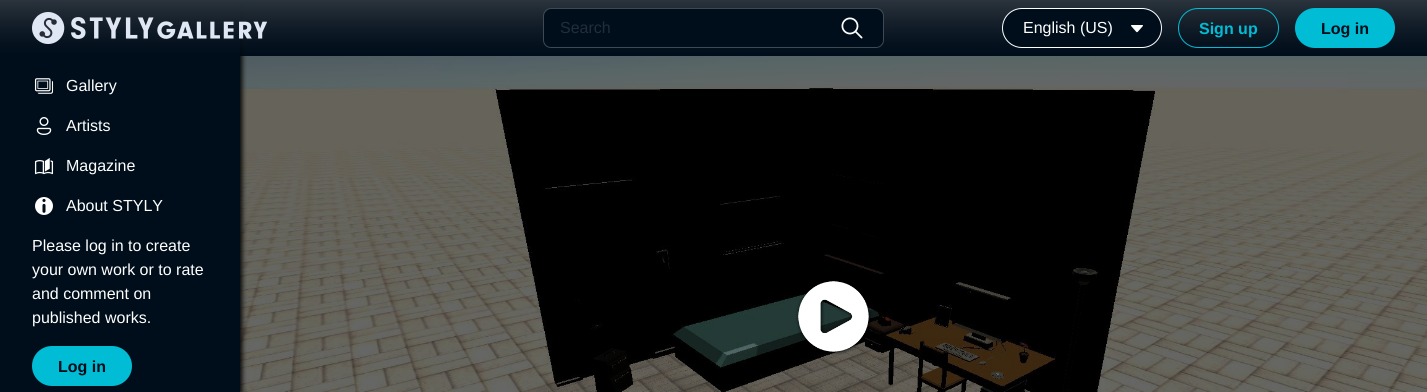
import math
import cairo


def round_path(ctx, x, y, w, h, r):
	ctx.new_sub_path()
	for i, (u, v) in enumerate([(x + w - r, y + h - r), (x + r, y + h - r), (x + r, y + r), (x + w - r, y + r)]):
		ctx.arc(u, v, r, i * math.pi / 2, (i + 1) * math.pi / 2)
	ctx.close_path()

def blur_box(ctx, x, y, w, h, r, blur, alpha):
	ctx.push_group_with_content(cairo.CONTENT_ALPHA)
	ctx.set_operator(cairo.OPERATOR_SOURCE)
	for i in range(15, -16, -2):
		e = blur * i / 6
		if min(w, h) + 2 * e > 0:
			ctx.set_source_rgba(0, 0, 0, alpha * math.erfc((i - 1) / 8.5) / 2)
			round_path(ctx, x - e, y - e, w + 2 * e, h + 2 * e, max(0, min(r + e + blur * .6, min(w, h) / 2 + e)))
			ctx.fill()
	ctx.mask(ctx.pop_group())

def paste(ctx, path, x, y, w, h):
	ctx.save()
	ctx.set_source_surface(cairo.ImageSurface.create_from_png(path), x, y)
	ctx.rectangle(x, y, w, h)
	ctx.fill()
	ctx.restore()

def draw(ctx):
	ctx.set_source_rgb(0, 0.051, 0.102)
	ctx.paint()
	paste(ctx, 'media/8.png', 240, 56, 1187, 336)
	ctx.save()
	ctx.rectangle(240, 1, 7, 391)
	ctx.clip()
	ctx.set_source_rgb(0, 0, 0)
	blur_box(ctx, 2, 0, 240, 392, 0, 2.5, 1)
	ctx.restore()
	gradient = cairo.LinearGradient(714, 0, 714, 56)
	gradient.add_color_stop_rgba(0, 0.169, 0.204, 0.239, 1)
	gradient.add_color_stop_rgba(1, 0, 0.051, 0.102, 0.5)
	ctx.set_source(gradient)
	ctx.rectangle(0, 0, 1427, 56)
	ctx.fill()
	paste(ctx, 'media/1.png', 32, 12, 235, 32)
	round_path(ctx, 543.5, 8.5, 340, 39, 7.5)
	ctx.set_source_rgb(0.239, 0.286, 0.333)
	ctx.set_line_width(1)
	ctx.stroke()
	ctx.save()
	round_path(ctx, 544, 9, 339, 38, 7)
	ctx.clip()
	ctx.set_source_rgb(0, 0.051, 0.102)
	ctx.new_path()
	ctx.move_to(552, 9)
	ctx.line_to(821, 9)
	ctx.line_to(821, 47)
	ctx.line_to(552, 47)
	ctx.curve_to(547.5, 47, 544, 43.5, 544, 39)
	ctx.line_to(544, 17)
	ctx.curve_to(544, 12.5, 547.5, 9, 552, 9)
	ctx.close_path()
	ctx.fill()
	ctx.restore()
	ctx.select_font_face('Liberation Sans')
	ctx.set_font_size(16)
	ctx.set_source_rgb(0.129, 0.176, 0.227)
	ctx.move_to(560, 33)
	ctx.show_text('Search')
	ctx.save()
	round_path(ctx, 544, 9, 339, 38, 7)
	ctx.clip()
	ctx.set_source_rgb(0, 0.051, 0.102)
	ctx.new_path()
	ctx.move_to(821, 9)
	ctx.line_to(875, 9)
	ctx.curve_to(879.5, 9, 883, 12.5, 883, 17)
	ctx.line_to(883, 39)
	ctx.curve_to(883, 43.5, 879.5, 47, 875, 47)
	ctx.line_to(821, 47)
	ctx.close_path()
	ctx.fill()
	ctx.restore()
	paste(ctx, 'media/2.png', 841, 17, 22, 22)
	ctx.set_source_rgb(0, 0.051, 0.102)
	round_path(ctx, 1002.5, 8.5, 159, 39, 19.5)
	ctx.fill_preserve()
	ctx.set_source_rgb(0.988, 0.996, 1)
	ctx.stroke()
	ctx.set_source_rgb(1, 1, 1)
	ctx.move_to(1023, 33)
	ctx.show_text('English (US)')
	paste(ctx, 'media/3.png', 1131, 25, 12, 8)
	round_path(ctx, 1178.5, 8.5, 100, 39, 19.5)
	ctx.set_source_rgb(0, 0.737, 0.831)
	ctx.stroke()
	ctx.select_font_face('Liberation Sans', cairo.FONT_SLANT_NORMAL, cairo.FONT_WEIGHT_BOLD)
	ctx.move_to(1199, 34)
	ctx.show_text('Sign up')
	round_path(ctx, 1295, 8, 100, 40, 20)
	ctx.fill()
	ctx.set_source_rgb(0, 0.051, 0.102)
	ctx.move_to(1321, 34)
	ctx.show_text('Log in')
	paste(ctx, 'media/4.png', 34, 78, 20, 16)
	ctx.select_font_face('Liberation Sans')
	ctx.set_source_rgb(1, 1, 1)
	ctx.move_to(66, 91)
	ctx.show_text('Gallery')
	paste(ctx, 'media/5.png', 36, 117, 16, 18)
	ctx.move_to(66, 131)
	ctx.show_text('Artists')
	paste(ctx, 'media/6.png', 34, 158, 20, 17)
	ctx.move_to(66, 171)
	ctx.show_text('Magazine')
	paste(ctx, 'media/7.png', 35, 197, 18, 18)
	for x, y, s in [
		(66, 211, 'About STYLY'),
		(32, 251, 'Please log in to create'),
		(32, 275, 'your own work or to rate'),
		(32, 299, 'and comment on'),
		(32, 323, 'published works.'),
	]:
		ctx.move_to(x, y)
		ctx.show_text(s)
	ctx.set_source_rgb(0, 0.737, 0.831)
	round_path(ctx, 32, 346, 100, 40, 20)
	ctx.fill()
	ctx.select_font_face('Liberation Sans', cairo.FONT_SLANT_NORMAL, cairo.FONT_WEIGHT_BOLD)
	ctx.set_source_rgb(0, 0.051, 0.102)
	ctx.move_to(58, 372)
	ctx.show_text('Log in')


surface = cairo.ImageSurface(cairo.FORMAT_RGB24, 1427, 392)
ctx = cairo.Context(surface)
options = cairo.FontOptions()
options.set_hint_metrics(cairo.HINT_METRICS_OFF)
options.set_hint_style(cairo.HINT_STYLE_NONE)
ctx.set_font_options(options)
ctx.set_miter_limit(4)
draw(ctx)
surface.write_to_png('image.png')
